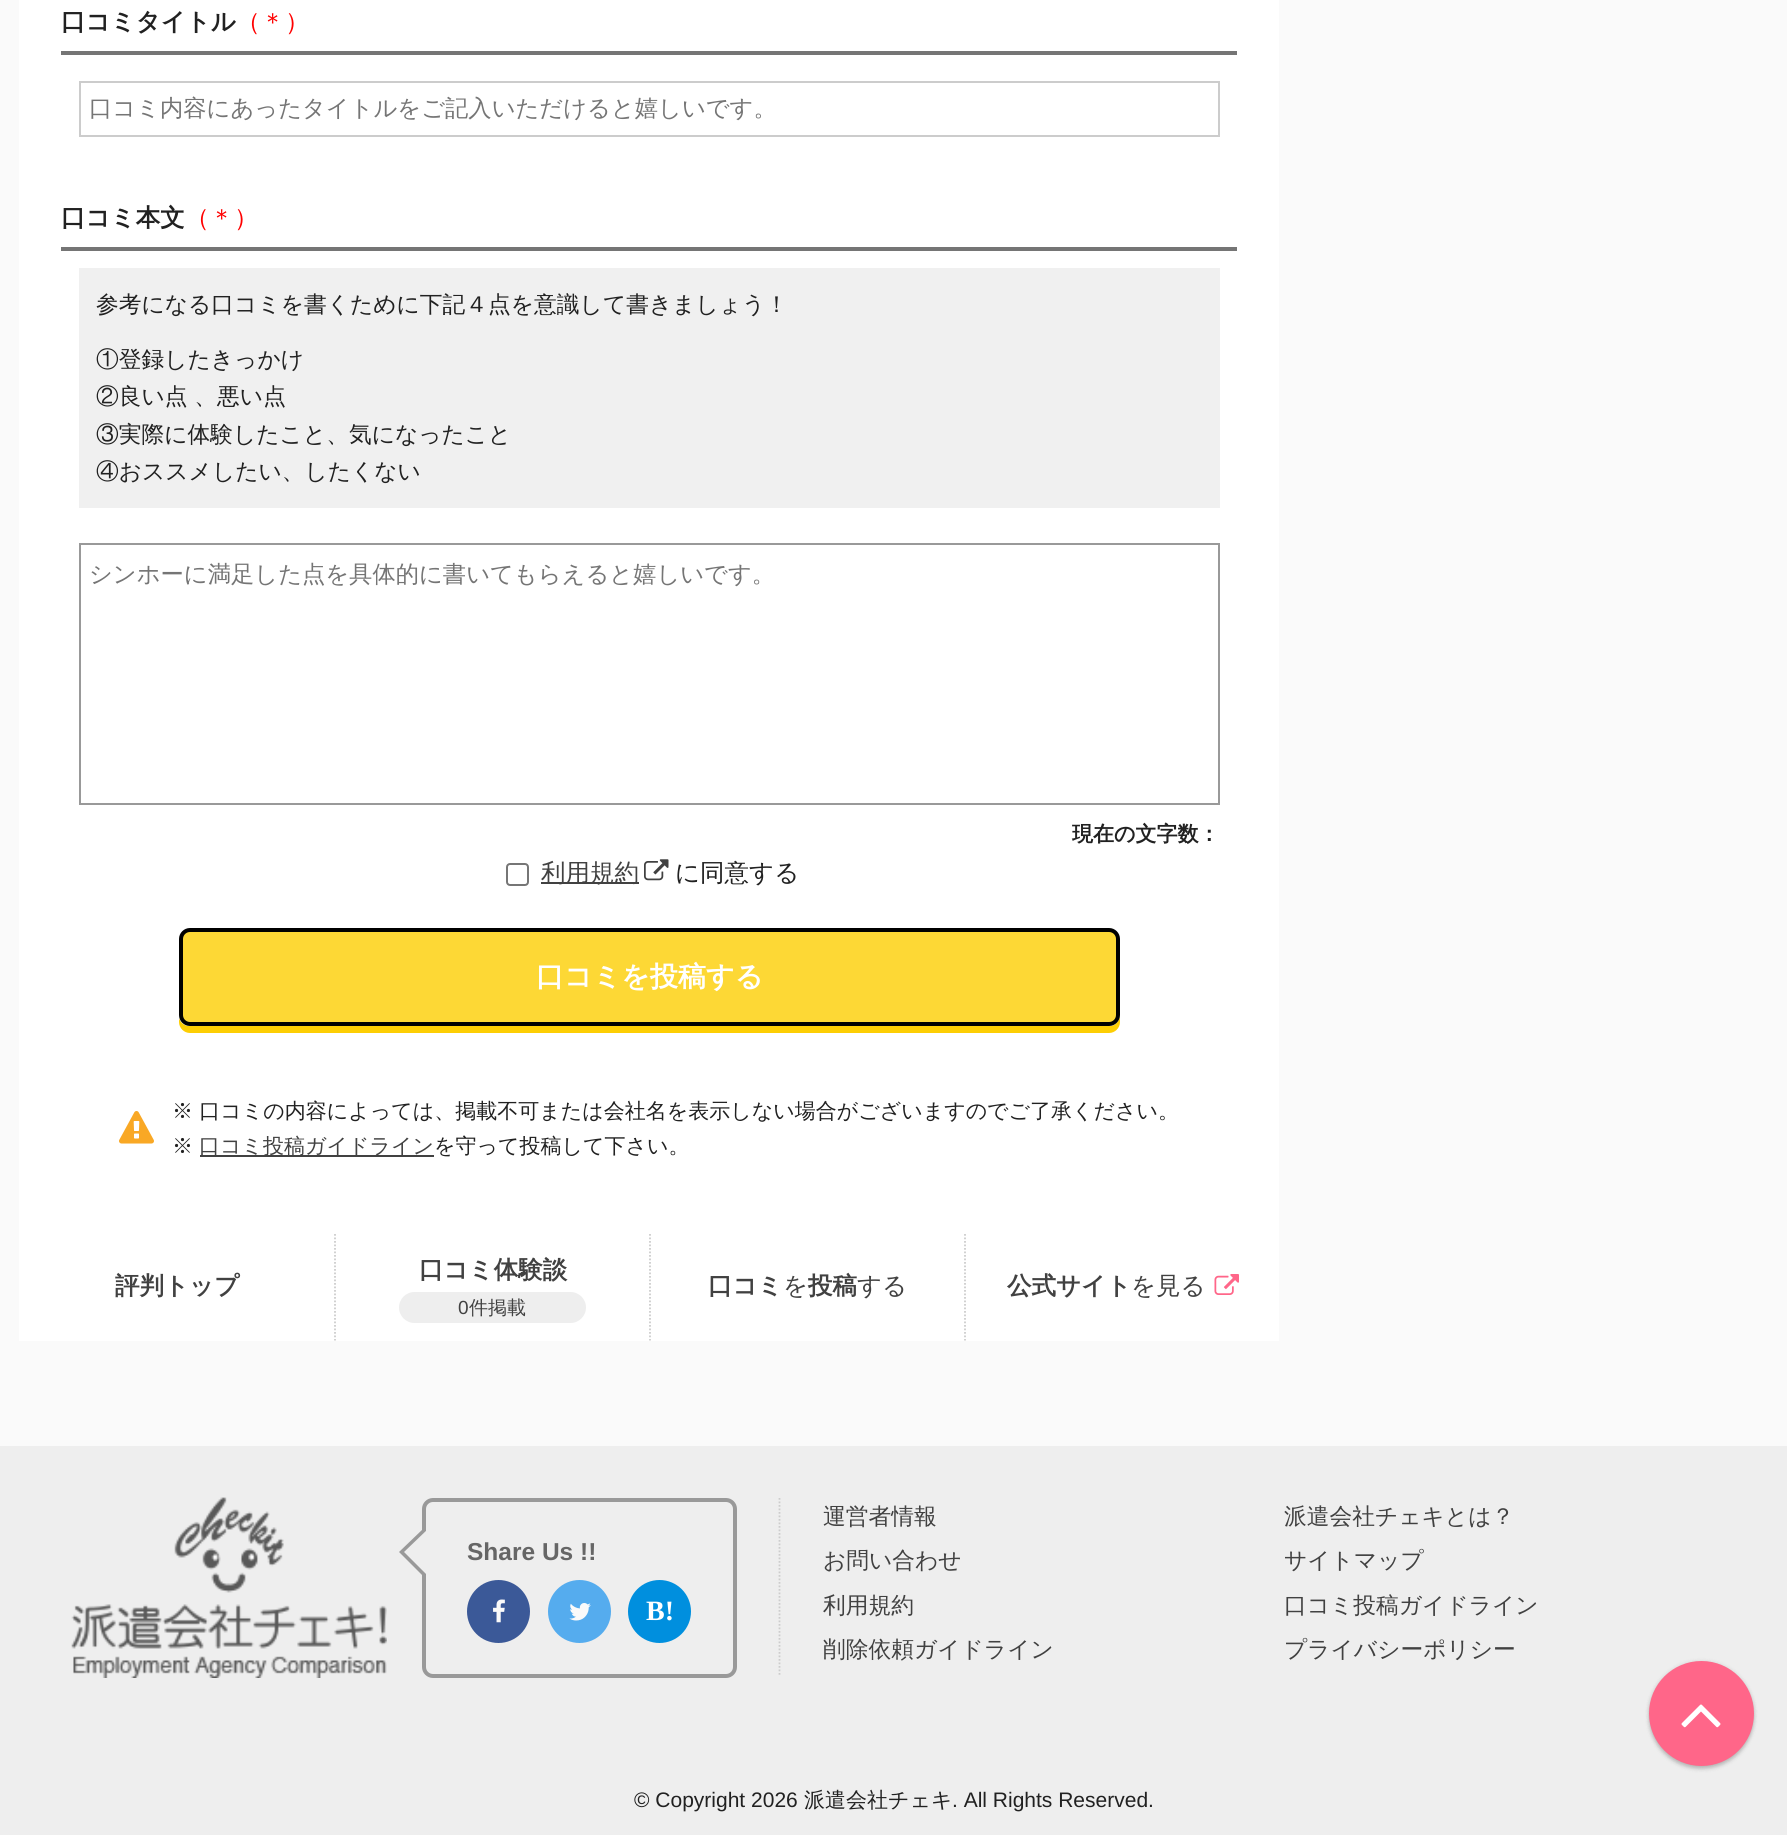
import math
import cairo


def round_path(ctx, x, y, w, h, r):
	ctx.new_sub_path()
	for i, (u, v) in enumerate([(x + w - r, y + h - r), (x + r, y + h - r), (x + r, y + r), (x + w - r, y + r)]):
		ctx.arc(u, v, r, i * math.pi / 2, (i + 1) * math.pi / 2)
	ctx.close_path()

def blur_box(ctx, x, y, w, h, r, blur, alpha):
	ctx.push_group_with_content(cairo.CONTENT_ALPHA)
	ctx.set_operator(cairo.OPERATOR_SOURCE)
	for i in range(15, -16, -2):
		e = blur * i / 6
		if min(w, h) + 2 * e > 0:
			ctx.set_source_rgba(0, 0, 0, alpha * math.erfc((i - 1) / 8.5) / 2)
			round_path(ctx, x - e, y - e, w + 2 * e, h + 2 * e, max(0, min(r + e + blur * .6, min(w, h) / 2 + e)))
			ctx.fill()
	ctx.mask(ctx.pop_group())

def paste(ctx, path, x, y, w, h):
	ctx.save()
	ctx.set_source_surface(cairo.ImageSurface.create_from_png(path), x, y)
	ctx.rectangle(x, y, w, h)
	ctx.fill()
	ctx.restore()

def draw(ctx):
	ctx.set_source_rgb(0.98, 0.98, 0.98)
	ctx.paint()
	ctx.set_source_rgb(1, 1, 1)
	ctx.rectangle(19, 0, 1260, 1341)
	ctx.fill()
	ctx.set_source_rgb(0.459, 0.459, 0.459)
	ctx.rectangle(61, 51, 1176, 4)
	ctx.fill()
	ctx.select_font_face('WenQuanYi Zen Hei', cairo.FONT_SLANT_NORMAL, cairo.FONT_WEIGHT_BOLD)
	ctx.set_font_size(24.5)
	ctx.set_source_rgb(0.129, 0.129, 0.129)
	ctx.move_to(61, 30)
	ctx.show_text('口コミタイトル')
	ctx.select_font_face('WenQuanYi Zen Hei Medium')
	ctx.set_source_rgb(1, 0, 0)
	ctx.move_to(236, 30)
	ctx.show_text('（＊）')
	ctx.rectangle(80, 82, 1139, 54)
	ctx.set_source_rgb(0.8, 0.8, 0.8)
	ctx.stroke()
	ctx.set_font_size(23.3)
	ctx.set_source_rgb(0.459, 0.459, 0.459)
	ctx.move_to(89, 116)
	ctx.show_text('口コミ内容にあったタイトルをご記入いただけると嬉しいです。')
	ctx.rectangle(61, 247, 1176, 4)
	ctx.fill()
	ctx.select_font_face('WenQuanYi Zen Hei', cairo.FONT_SLANT_NORMAL, cairo.FONT_WEIGHT_BOLD)
	ctx.set_font_size(24.5)
	ctx.set_source_rgb(0.129, 0.129, 0.129)
	ctx.move_to(61, 226)
	ctx.show_text('口コミ本文')
	ctx.select_font_face('WenQuanYi Zen Hei Medium')
	ctx.set_source_rgb(1, 0, 0)
	ctx.move_to(185, 226)
	ctx.show_text('（＊）')
	ctx.set_source_rgb(0.941, 0.941, 0.941)
	ctx.rectangle(79, 268, 1141, 240)
	ctx.fill()
	ctx.set_font_size(22.75)
	ctx.set_source_rgb(0.129, 0.129, 0.129)
	for x, y, s in [
		(96, 312, '参考になる口コミを書くために下記４点を意識して書きましょう！'),
		(96, 367, '①登録したきっかけ'),
		(96, 404, '②良い点 、悪い点'),
		(96, 442, '③実際に体験したこと、気になったこと'),
		(96, 479, '④おススメしたい、したくない'),
	]:
		ctx.move_to(x, y)
		ctx.show_text(s)
	ctx.rectangle(80, 544, 1139, 260)
	ctx.set_source_rgb(0.6, 0.6, 0.6)
	ctx.stroke()
	ctx.set_font_size(23.3)
	ctx.set_source_rgb(0.459, 0.459, 0.459)
	ctx.move_to(89, 582)
	ctx.show_text('シンホーに満足した点を具体的に書いてもらえると嬉しいです。')
	ctx.select_font_face('WenQuanYi Zen Hei', cairo.FONT_SLANT_NORMAL, cairo.FONT_WEIGHT_BOLD)
	ctx.set_font_size(21)
	ctx.set_source_rgb(0.129, 0.129, 0.129)
	ctx.move_to(1072, 841)
	ctx.show_text('現在の文字数：')
	round_path(ctx, 507, 864, 21, 21, 3)
	ctx.set_source_rgb(0.463, 0.463, 0.463)
	ctx.stroke()
	ctx.set_source_rgb(0.255, 0.255, 0.255)
	ctx.rectangle(541, 882, 98, 2)
	ctx.fill()
	ctx.select_font_face('WenQuanYi Zen Hei Medium')
	ctx.set_font_size(24.5)
	ctx.move_to(541, 881)
	ctx.show_text('利用規約')
	paste(ctx, 'media/1.png', 644, 859, 25, 22)
	ctx.set_source_rgb(0.129, 0.129, 0.129)
	ctx.move_to(675, 881)
	ctx.show_text('に同意する')
	ctx.set_source_rgb(0.992, 0.808, 0.012)
	ctx.new_path()
	ctx.move_to(179, 1018)
	ctx.line_to(179, 1022)
	ctx.curve_to(179, 1028, 184, 1033, 190, 1033)
	ctx.line_to(1109, 1033)
	ctx.curve_to(1115, 1033, 1120, 1028, 1120, 1022)
	ctx.line_to(1120, 1015)
	ctx.curve_to(1120, 1021, 1115, 1026, 1110, 1026)
	ctx.line_to(189, 1026)
	ctx.curve_to(184, 1026, 180, 1022, 179, 1018)
	ctx.close_path()
	ctx.fill()
	ctx.set_source_rgb(0.992, 0.847, 0.208)
	round_path(ctx, 181, 930, 937, 94, 9)
	ctx.fill_preserve()
	ctx.set_source_rgb(0, 0, 0)
	ctx.set_line_width(4)
	ctx.stroke()
	ctx.select_font_face('WenQuanYi Zen Hei', cairo.FONT_SLANT_NORMAL, cairo.FONT_WEIGHT_BOLD)
	ctx.set_font_size(28)
	ctx.set_source_rgb(1, 1, 1)
	ctx.move_to(536, 986)
	ctx.show_text('口コミを投稿する')
	paste(ctx, 'media/2.png', 119, 1111, 35, 33)
	ctx.select_font_face('WenQuanYi Zen Hei Medium')
	ctx.set_font_size(21)
	ctx.set_source_rgb(0.129, 0.129, 0.129)
	ctx.move_to(172, 1118)
	ctx.show_text('※ 口コミの内容によっては、掲載不可または会社名を表示しない場合がございますのでご了承ください。')
	ctx.move_to(172, 1153)
	ctx.show_text('※')
	ctx.set_source_rgb(0.255, 0.255, 0.255)
	ctx.rectangle(200, 1155, 234, 2)
	ctx.fill()
	ctx.move_to(199, 1153)
	ctx.show_text('口コミ投稿ガイドライン')
	ctx.set_source_rgb(0.129, 0.129, 0.129)
	ctx.move_to(434, 1153)
	ctx.show_text('を守って投稿して下さい。')
	ctx.select_font_face('WenQuanYi Zen Hei', cairo.FONT_SLANT_NORMAL, cairo.FONT_WEIGHT_BOLD)
	ctx.set_font_size(24.5)
	ctx.set_source_rgb(0.255, 0.255, 0.255)
	ctx.move_to(115, 1294)
	ctx.show_text('評判トップ')
	ctx.new_path()
	ctx.move_to(335, 1234)
	ctx.line_to(335, 1340.5)
	ctx.set_source_rgb(0.8, 0.8, 0.8)
	ctx.set_line_width(1.8)
	ctx.set_dash([1.75, 1.75])
	ctx.stroke()
	ctx.set_source_rgb(0.255, 0.255, 0.255)
	ctx.move_to(419, 1278)
	ctx.show_text('口コミ体験談')
	ctx.set_source_rgb(0.933, 0.933, 0.933)
	round_path(ctx, 399, 1292, 187, 31, 15.5)
	ctx.fill()
	ctx.select_font_face('Liberation Sans')
	ctx.set_font_size(19)
	ctx.set_source_rgb(0.255, 0.255, 0.255)
	ctx.move_to(458, 1314)
	ctx.show_text('0')
	ctx.select_font_face('WenQuanYi Zen Hei Medium')
	ctx.move_to(469, 1314)
	ctx.show_text('件掲載')
	ctx.new_path()
	ctx.move_to(650, 1234)
	ctx.line_to(650, 1340.5)
	ctx.set_source_rgb(0.8, 0.8, 0.8)
	ctx.stroke()
	ctx.select_font_face('WenQuanYi Zen Hei', cairo.FONT_SLANT_NORMAL, cairo.FONT_WEIGHT_BOLD)
	ctx.set_font_size(24.5)
	ctx.set_source_rgb(0.255, 0.255, 0.255)
	ctx.move_to(708, 1294)
	ctx.show_text('口コミ')
	ctx.select_font_face('WenQuanYi Zen Hei Medium')
	ctx.move_to(783, 1294)
	ctx.show_text('を')
	ctx.select_font_face('WenQuanYi Zen Hei', cairo.FONT_SLANT_NORMAL, cairo.FONT_WEIGHT_BOLD)
	ctx.move_to(808, 1294)
	ctx.show_text('投稿')
	ctx.select_font_face('WenQuanYi Zen Hei Medium')
	ctx.move_to(857, 1294)
	ctx.show_text('する')
	ctx.new_path()
	ctx.move_to(965, 1234)
	ctx.line_to(965, 1340.5)
	ctx.set_source_rgb(0.8, 0.8, 0.8)
	ctx.stroke()
	ctx.select_font_face('WenQuanYi Zen Hei', cairo.FONT_SLANT_NORMAL, cairo.FONT_WEIGHT_BOLD)
	ctx.set_source_rgb(0.255, 0.255, 0.255)
	ctx.move_to(1007, 1294)
	ctx.show_text('公式サイト')
	ctx.select_font_face('WenQuanYi Zen Hei Medium')
	ctx.move_to(1131, 1294)
	ctx.show_text('を見る')
	paste(ctx, 'media/3.png', 1214, 1274, 25, 21)
	ctx.set_source_rgb(0.933, 0.933, 0.933)
	ctx.rectangle(0, 1446, 1787, 389)
	ctx.fill()
	paste(ctx, 'media/4.png', 71, 1497, 316, 181)
	round_path(ctx, 424, 1500, 311, 176, 9)
	ctx.set_source_rgb(0.6, 0.6, 0.6)
	ctx.set_line_width(4)
	ctx.set_dash([])
	ctx.stroke()
	ctx.new_path()
	ctx.move_to(424, 1528)
	ctx.line_to(424, 1577)
	ctx.line_to(399, 1552)
	ctx.close_path()
	ctx.fill()
	ctx.set_source_rgb(0.933, 0.933, 0.933)
	ctx.new_path()
	ctx.move_to(429, 1528)
	ctx.line_to(429, 1577)
	ctx.line_to(404, 1552)
	ctx.close_path()
	ctx.fill()
	ctx.select_font_face('Liberation Sans', cairo.FONT_SLANT_NORMAL, cairo.FONT_WEIGHT_BOLD)
	ctx.set_source_rgb(0.4, 0.4, 0.4)
	ctx.move_to(467, 1560)
	ctx.show_text('Share Us !!')
	ctx.set_source_rgb(0.231, 0.349, 0.596)
	ctx.new_path()
	ctx.arc(498.5, 1611.5, 31.5, 0, 2 * math.pi)
	ctx.fill()
	paste(ctx, 'media/5.png', 493, 1599, 12, 24)
	ctx.set_source_rgb(0.333, 0.675, 0.933)
	ctx.arc(579.5, 1611.5, 31.5, 0, 2 * math.pi)
	ctx.fill()
	paste(ctx, 'media/6.png', 569, 1603, 22, 18)
	ctx.set_source_rgb(0, 0.561, 0.871)
	ctx.arc(659.5, 1611.5, 31.5, 0, 2 * math.pi)
	ctx.fill()
	ctx.select_font_face('Liberation Serif', cairo.FONT_SLANT_NORMAL, cairo.FONT_WEIGHT_BOLD)
	ctx.set_font_size(28)
	ctx.set_source_rgb(1, 1, 1)
	ctx.move_to(646, 1620)
	ctx.show_text('B!')
	ctx.new_path()
	ctx.move_to(779.5, 1498)
	ctx.line_to(779.5, 1675)
	ctx.set_source_rgb(0.8, 0.8, 0.8)
	ctx.set_line_width(1.8)
	ctx.set_dash([1.75, 1.75])
	ctx.stroke()
	ctx.select_font_face('WenQuanYi Zen Hei Medium')
	ctx.set_font_size(22.75)
	ctx.set_source_rgb(0.255, 0.255, 0.255)
	for x, y, s in [
		(823, 1524, '運営者情報'),
		(1284, 1524, '派遣会社チェキとは？'),
		(823, 1568, 'お問い合わせ'),
		(1284, 1568, 'サイトマップ'),
		(823, 1613, '利用規約'),
		(1284, 1613, '口コミ投稿ガイドライン'),
		(823, 1657, '削除依頼ガイドライン'),
		(1284, 1657, 'プライバシーポリシー'),
	]:
		ctx.move_to(x, y)
		ctx.show_text(s)
	ctx.select_font_face('Liberation Sans')
	ctx.set_font_size(21)
	ctx.set_source_rgb(0.129, 0.129, 0.129)
	ctx.move_to(634, 1807)
	ctx.show_text('© Copyright 2026')
	ctx.select_font_face('WenQuanYi Zen Hei Medium')
	ctx.move_to(804, 1807)
	ctx.show_text('派遣会社チェキ')
	ctx.select_font_face('Liberation Sans')
	ctx.move_to(952, 1807)
	ctx.show_text('. All Rights Reserved.')
	ctx.set_source_rgb(0.016, 0, 0)
	blur_box(ctx, 1649, 1664, 105, 105, 52.5, 2, 0.2)
	blur_box(ctx, 1649, 1661, 105, 105, 52.5, 2, 0.1)
	ctx.set_source_rgb(1, 0.4, 0.537)
	ctx.arc(1701.5, 1713.5, 52.5, 0, 2 * math.pi)
	ctx.fill()
	paste(ctx, 'media/7.png', 1681, 1704, 40, 24)


surface = cairo.ImageSurface(cairo.FORMAT_RGB24, 1787, 1835)
ctx = cairo.Context(surface)
options = cairo.FontOptions()
options.set_hint_metrics(cairo.HINT_METRICS_OFF)
options.set_hint_style(cairo.HINT_STYLE_NONE)
ctx.set_font_options(options)
ctx.set_miter_limit(4)
draw(ctx)
surface.write_to_png('image.png')
